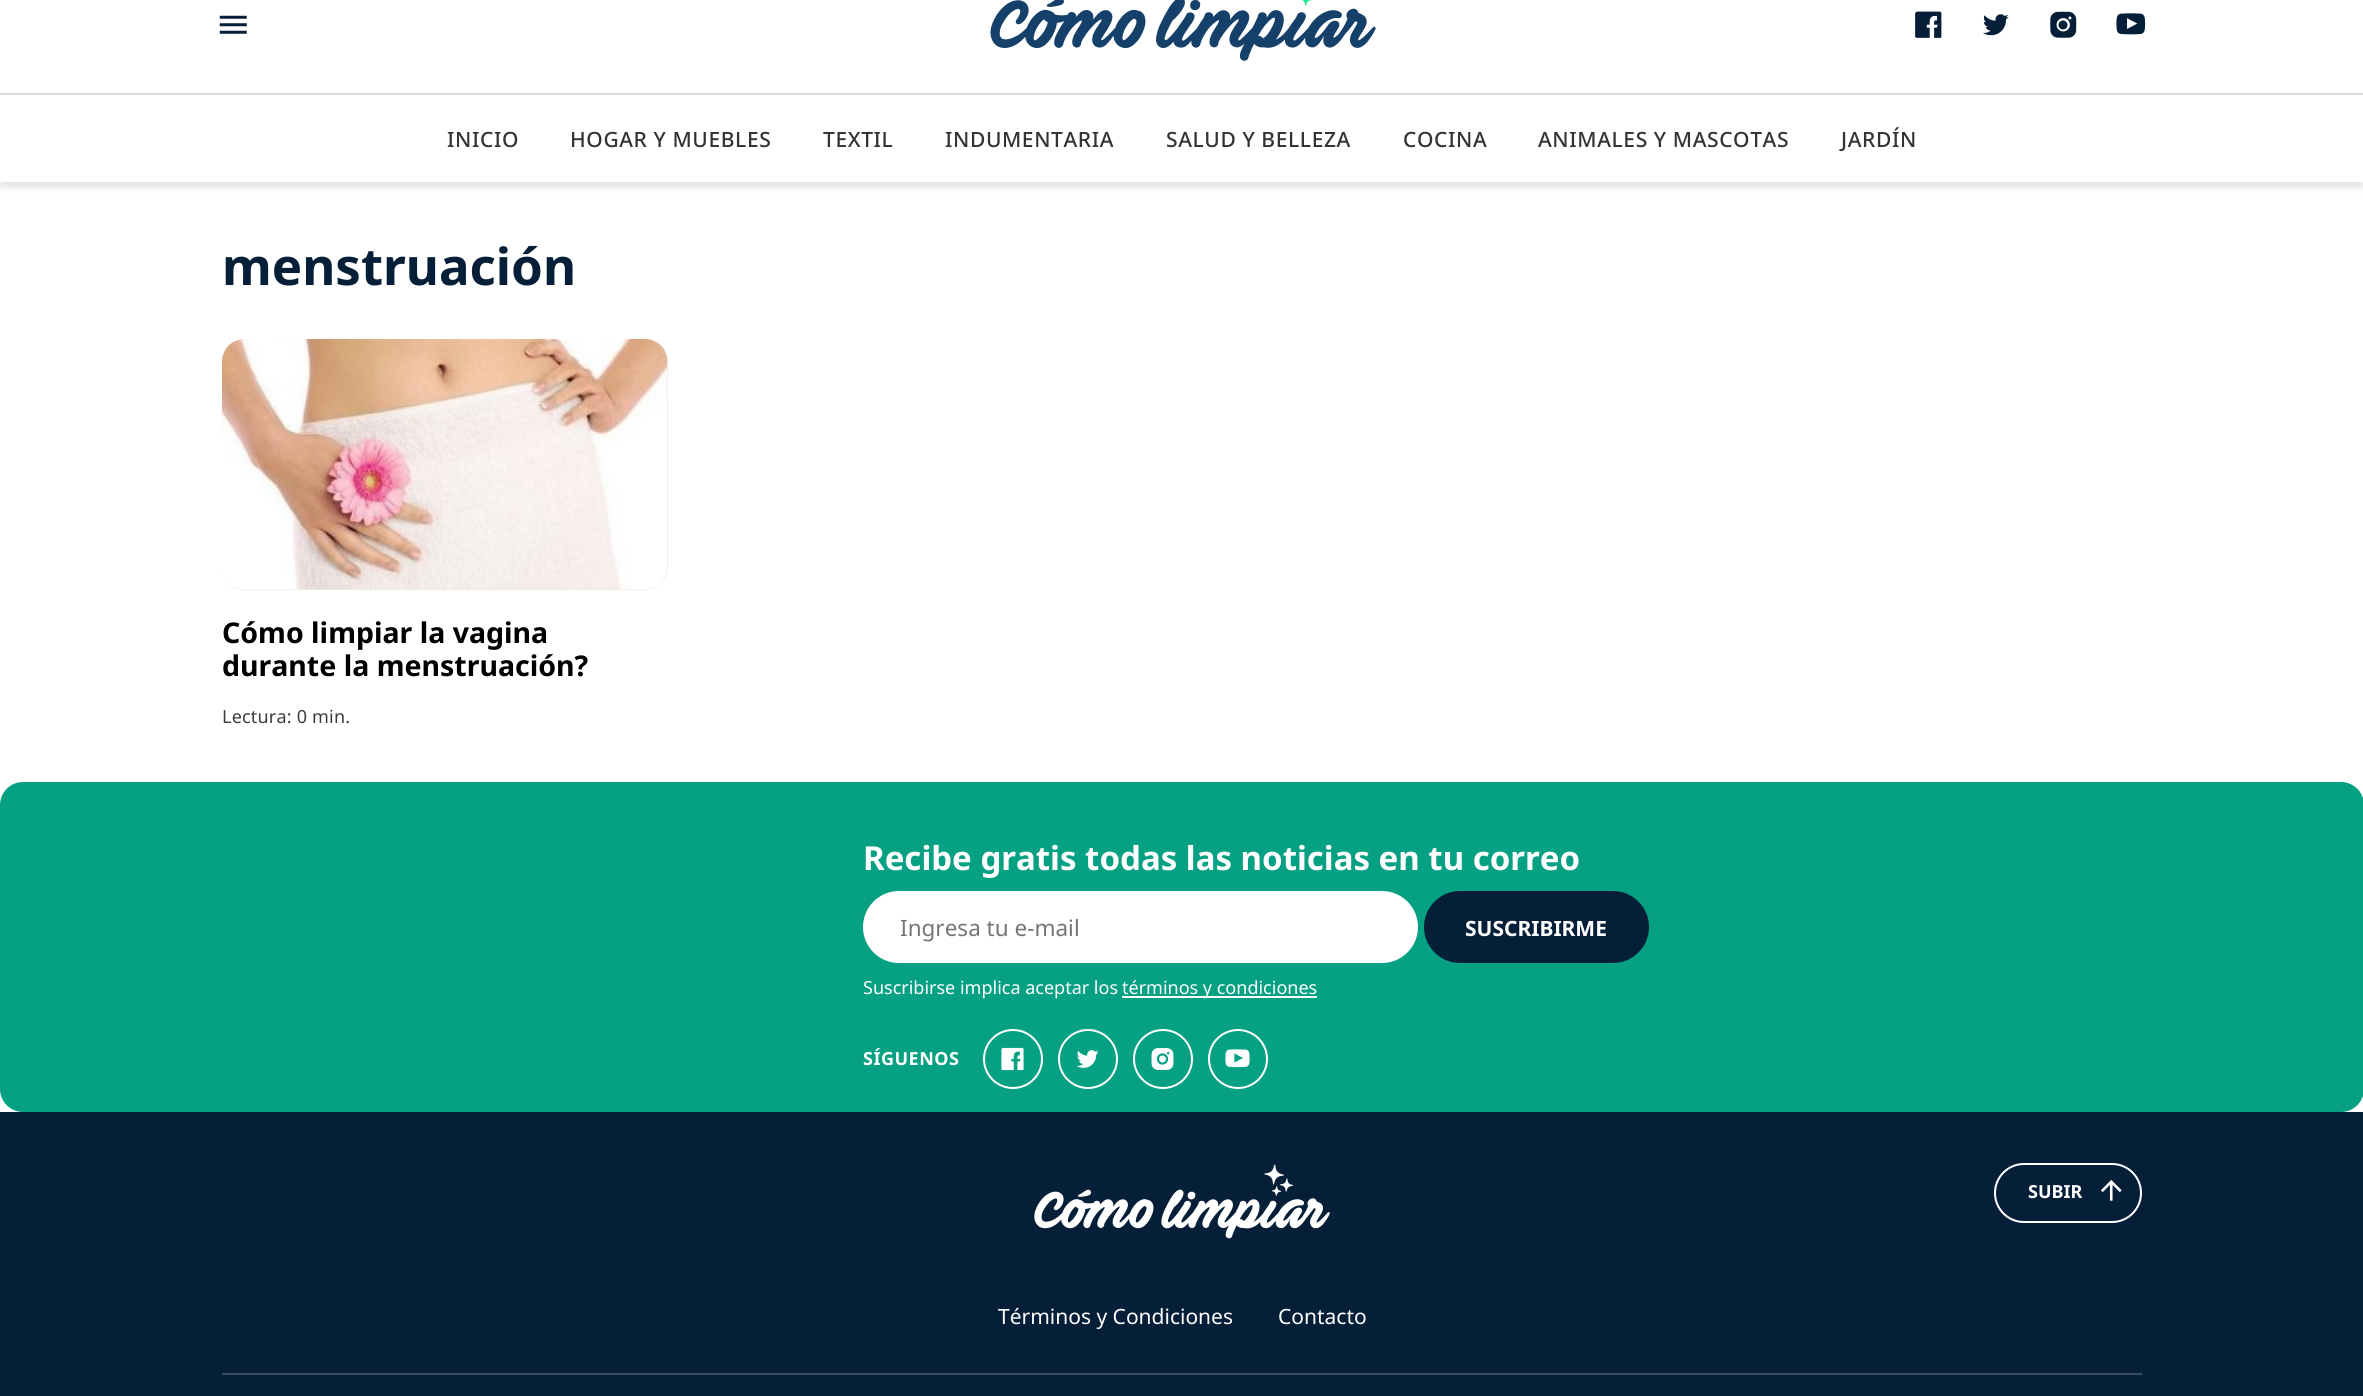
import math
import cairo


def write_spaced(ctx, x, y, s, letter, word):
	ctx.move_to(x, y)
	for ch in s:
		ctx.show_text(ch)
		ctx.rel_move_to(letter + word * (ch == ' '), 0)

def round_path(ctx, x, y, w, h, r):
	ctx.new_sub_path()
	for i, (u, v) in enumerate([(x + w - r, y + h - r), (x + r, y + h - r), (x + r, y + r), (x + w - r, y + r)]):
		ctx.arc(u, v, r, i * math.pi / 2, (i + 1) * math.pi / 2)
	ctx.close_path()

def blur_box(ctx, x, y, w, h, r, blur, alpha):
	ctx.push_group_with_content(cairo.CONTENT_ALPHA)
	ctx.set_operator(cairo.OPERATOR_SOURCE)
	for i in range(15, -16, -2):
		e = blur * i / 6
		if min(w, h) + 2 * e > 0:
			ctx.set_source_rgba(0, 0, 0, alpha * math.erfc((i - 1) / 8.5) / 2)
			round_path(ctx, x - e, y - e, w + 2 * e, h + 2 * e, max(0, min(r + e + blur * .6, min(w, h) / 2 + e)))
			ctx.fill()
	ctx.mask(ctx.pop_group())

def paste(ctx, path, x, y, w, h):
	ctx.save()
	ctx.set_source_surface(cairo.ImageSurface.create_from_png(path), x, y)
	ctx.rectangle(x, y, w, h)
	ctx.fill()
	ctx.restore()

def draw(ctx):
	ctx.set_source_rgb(1, 1, 1)
	ctx.paint()
	ctx.set_source_rgb(0, 0, 0)
	blur_box(ctx, 0, -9, 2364, 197, 0, 3, 0.1)
	ctx.set_source_rgb(1, 1, 1)
	ctx.rectangle(0, 0, 2363, 182)
	ctx.fill()
	ctx.set_source_rgb(0.851, 0.851, 0.851)
	ctx.rectangle(0, 93, 2363, 2)
	ctx.fill()
	paste(ctx, 'media/1.png', 219, 15, 28, 19)
	paste(ctx, 'media/2.png', 990, 0, 386, 61)
	paste(ctx, 'media/3.png', 1915, 11, 27, 27)
	paste(ctx, 'media/4.png', 1983, 14, 26, 22)
	paste(ctx, 'media/5.png', 2050, 11, 27, 27)
	paste(ctx, 'media/6.png', 2116, 13, 30, 22)
	ctx.select_font_face('Noto Sans Medium')
	ctx.set_font_size(21)
	ctx.set_source_rgb(0.2, 0.2, 0.2)
	for x, y, s in [
		(447, 147, 'INICIO'),
		(570, 147, 'HOGAR Y MUEBLES'),
		(823, 147, 'TEXTIL'),
		(945, 147, 'INDUMENTARIA'),
		(1166, 147, 'SALUD Y BELLEZA'),
		(1403, 147, 'COCINA'),
		(1538, 147, 'ANIMALES Y MASCOTAS'),
		(1841, 147, 'JARDÍN'),
	]:
		write_spaced(ctx, x, y, s, 0.6, 0)
	ctx.select_font_face('Noto Sans', cairo.FONT_SLANT_NORMAL, cairo.FONT_WEIGHT_BOLD)
	ctx.set_font_size(51)
	ctx.set_source_rgb(0.024, 0.122, 0.22)
	ctx.move_to(222, 285)
	ctx.show_text('menstruación')
	ctx.set_source_rgb(0.918, 0.918, 0.918)
	round_path(ctx, 222, 339, 446, 251, 23)
	ctx.fill()
	paste(ctx, 'media/7.png', 222, 339, 446, 251)
	ctx.set_font_size(28.5)
	ctx.set_source_rgb(0, 0, 0)
	ctx.move_to(222, 643)
	ctx.show_text('Cómo limpiar la vagina')
	ctx.move_to(222, 676)
	ctx.show_text('durante la menstruación?')
	ctx.select_font_face('Noto Sans')
	ctx.set_font_size(18)
	ctx.set_source_rgb(0.235, 0.235, 0.235)
	write_spaced(ctx, 222, 723, 'Lectura: 0 min.', 0.2, 0)
	ctx.set_source_rgb(0.024, 0.627, 0.51)
	round_path(ctx, 0, 782, 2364, 330, 23)
	ctx.fill()
	ctx.select_font_face('Noto Sans', cairo.FONT_SLANT_NORMAL, cairo.FONT_WEIGHT_BOLD)
	ctx.set_font_size(33)
	ctx.set_source_rgb(1, 1, 1)
	ctx.move_to(863, 870)
	ctx.show_text('Recibe gratis todas las noticias en tu correo')
	round_path(ctx, 864, 892, 553, 70, 35)
	ctx.fill_preserve()
	ctx.stroke()
	ctx.select_font_face('Noto Sans')
	ctx.set_font_size(22.5)
	ctx.set_source_rgb(0.459, 0.459, 0.459)
	ctx.move_to(900, 936)
	ctx.show_text('Ingresa tu e-mail')
	ctx.set_source_rgb(0.024, 0.122, 0.22)
	round_path(ctx, 1424, 891, 225, 72, 36)
	ctx.fill()
	ctx.select_font_face('Noto Sans', cairo.FONT_SLANT_NORMAL, cairo.FONT_WEIGHT_BOLD)
	ctx.set_font_size(21)
	ctx.set_source_rgb(1, 1, 1)
	ctx.move_to(1465, 936)
	ctx.show_text('SUSCRIBIRME')
	ctx.select_font_face('Noto Sans')
	ctx.set_font_size(18)
	ctx.move_to(863, 994)
	ctx.show_text('Suscribirse implica aceptar los')
	ctx.rectangle(1122, 996, 195, 2)
	ctx.fill()
	ctx.move_to(1122, 994)
	ctx.show_text('términos y condiciones')
	ctx.select_font_face('Noto Sans', cairo.FONT_SLANT_NORMAL, cairo.FONT_WEIGHT_BOLD)
	write_spaced(ctx, 863, 1065, 'SÍGUENOS', 0.5, 0)
	ctx.new_path()
	ctx.arc(1013, 1059, 29, 0, 2 * math.pi)
	ctx.stroke()
	paste(ctx, 'media/8.png', 1001, 1047, 23, 24)
	ctx.arc(1088, 1059, 29, 0, 2 * math.pi)
	ctx.stroke()
	paste(ctx, 'media/9.png', 1076, 1050, 23, 18)
	ctx.arc(1163, 1059, 29, 0, 2 * math.pi)
	ctx.stroke()
	paste(ctx, 'media/10.png', 1151, 1048, 23, 22)
	ctx.arc(1238, 1059, 29, 0, 2 * math.pi)
	ctx.stroke()
	paste(ctx, 'media/11.png', 1225, 1049, 25, 19)
	ctx.set_source_rgb(0.024, 0.122, 0.22)
	ctx.rectangle(0, 1112, 2363, 284)
	ctx.fill()
	paste(ctx, 'media/12.png', 1034, 1164, 296, 75)
	round_path(ctx, 1995, 1164, 146, 58, 29)
	ctx.set_source_rgb(1, 1, 1)
	ctx.stroke()
	ctx.move_to(2028, 1198)
	ctx.show_text('SUBIR')
	paste(ctx, 'media/13.png', 2100, 1180, 22, 21)
	ctx.set_source_rgb(0.22, 0.298, 0.376)
	ctx.rectangle(222, 1373, 1920, 2)
	ctx.fill()
	ctx.select_font_face('Noto Sans')
	ctx.set_font_size(21)
	ctx.set_source_rgb(1, 1, 1)
	ctx.move_to(998, 1324)
	ctx.show_text('Términos y Condiciones')
	ctx.move_to(1278, 1324)
	ctx.show_text('Contacto')


surface = cairo.ImageSurface(cairo.FORMAT_RGB24, 2363, 1396)
ctx = cairo.Context(surface)
options = cairo.FontOptions()
options.set_hint_metrics(cairo.HINT_METRICS_OFF)
options.set_hint_style(cairo.HINT_STYLE_NONE)
ctx.set_font_options(options)
ctx.set_miter_limit(4)
draw(ctx)
surface.write_to_png('image.png')
